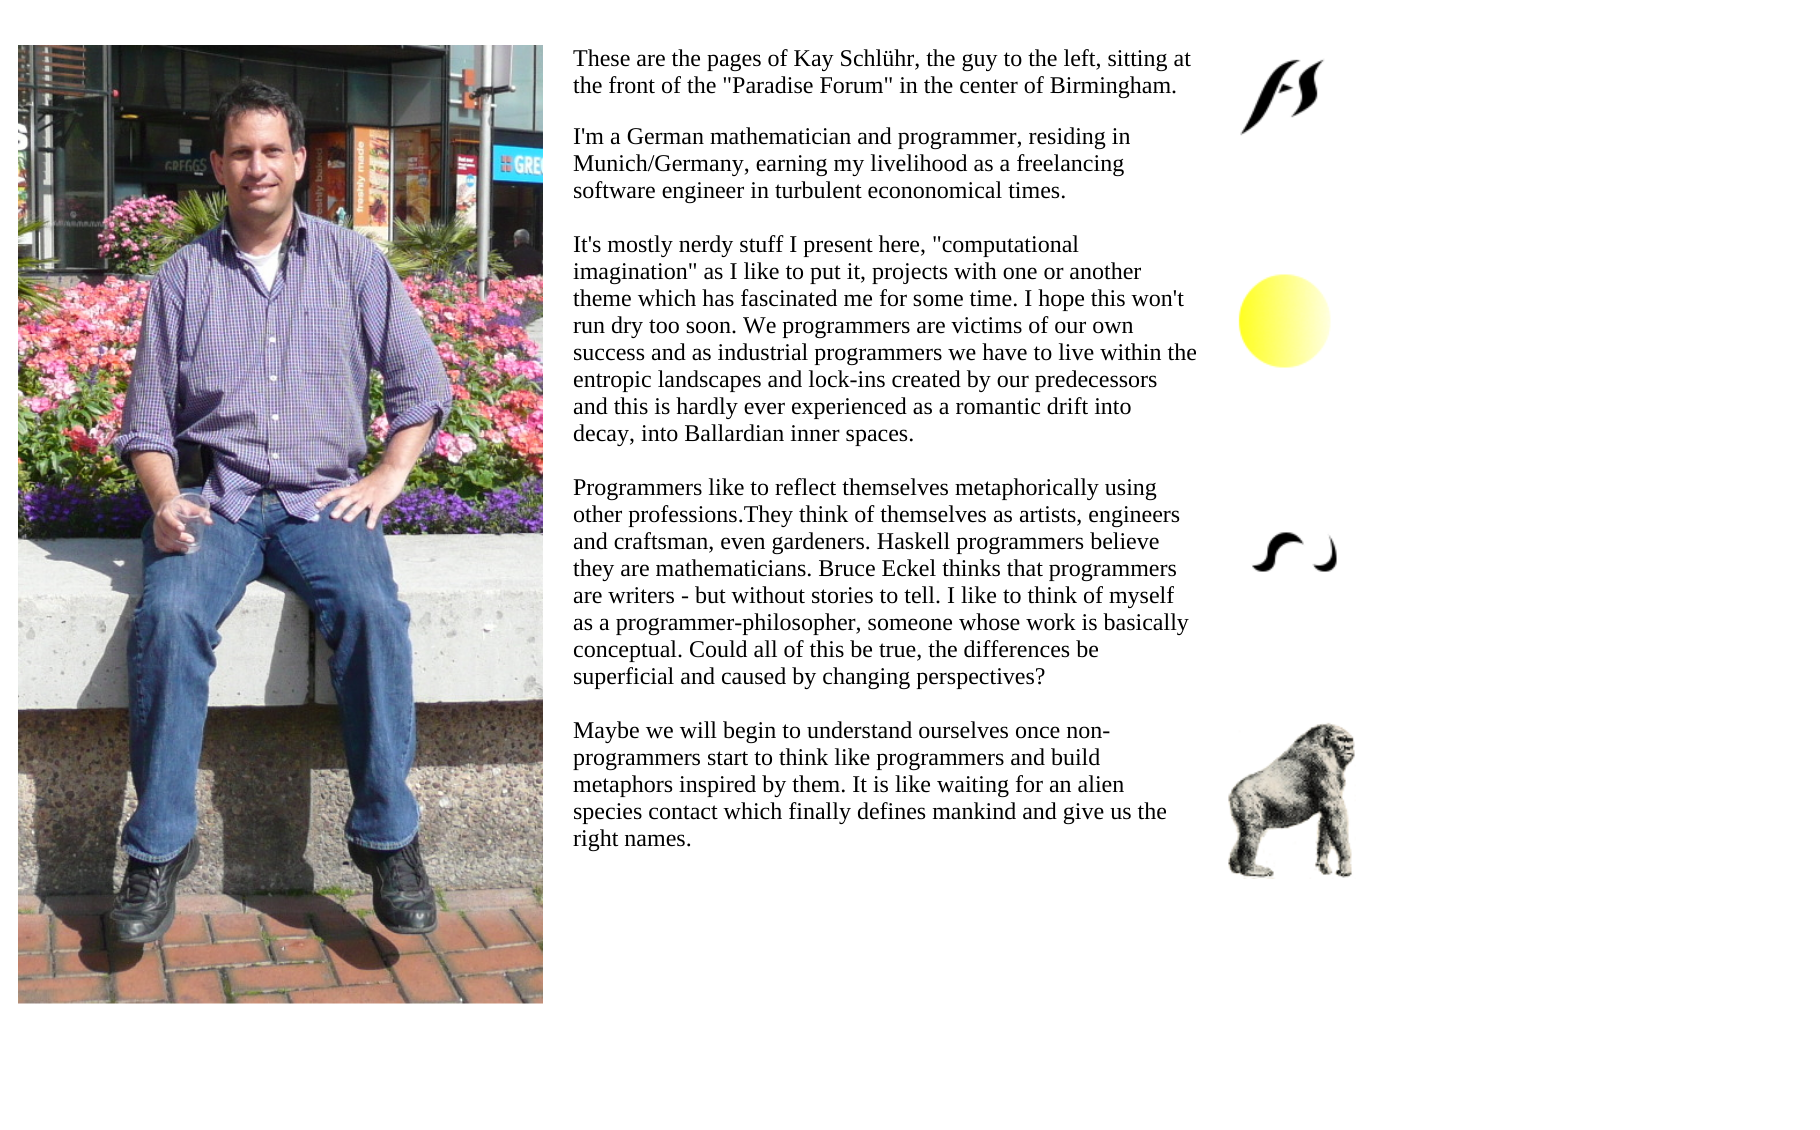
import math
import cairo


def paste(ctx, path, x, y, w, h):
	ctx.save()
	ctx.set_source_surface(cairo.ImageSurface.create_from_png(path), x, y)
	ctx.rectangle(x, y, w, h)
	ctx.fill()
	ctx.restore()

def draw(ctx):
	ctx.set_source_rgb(1, 1, 1)
	ctx.paint()
	paste(ctx, 'media/1.png', 18, 45, 525, 959)
	ctx.select_font_face('Liberation Serif')
	ctx.set_font_size(24)
	ctx.set_source_rgb(0, 0, 0)
	for x, y, s in [
		(573, 66, 'These are the pages of Kay Schlühr, the guy to the left, sitting at'),
		(573, 93, 'the front of the "Paradise Forum" in the center of Birmingham.'),
		(573, 144, 'I\'m a German mathematician and programmer, residing in'),
		(573, 171, 'Munich/Germany, earning my livelihood as a freelancing'),
		(573, 198, 'software engineer in turbulent econonomical times.'),
		(573, 252, 'It\'s mostly nerdy stuff I present here, "computational'),
		(573, 279, 'imagination" as I like to put it, projects with one or another'),
		(573, 306, 'theme which has fascinated me for some time. I hope this won\'t'),
		(573, 333, 'run dry too soon. We programmers are victims of our own'),
		(573, 360, 'success and as industrial programmers we have to live within the'),
		(573, 387, 'entropic landscapes and lock-ins created by our predecessors'),
		(573, 414, 'and this is hardly ever experienced as a romantic drift into'),
		(573, 441, 'decay, into Ballardian inner spaces.'),
		(573, 495, 'Programmers like to reflect themselves metaphorically using'),
		(573, 522, 'other professions.They think of themselves as artists, engineers'),
		(573, 549, 'and craftsman, even gardeners. Haskell programmers believe'),
		(573, 576, 'they are mathematicians. Bruce Eckel thinks that programmers'),
		(573, 603, 'are writers - but without stories to tell. I like to think of myself'),
		(573, 630, 'as a programmer-philosopher, someone whose work is basically'),
		(573, 657, 'conceptual. Could all of this be true, the differences be'),
		(573, 684, 'superficial and caused by changing perspectives?'),
		(573, 738, 'Maybe we will begin to understand ourselves once non-'),
		(573, 765, 'programmers start to think like programmers and build'),
		(573, 792, 'metaphors inspired by them. It is like waiting for an alien'),
		(573, 819, 'species contact which finally defines mankind and give us the'),
		(573, 846, 'right names.'),
	]:
		ctx.move_to(x, y)
		ctx.show_text(s)
	paste(ctx, 'media/2.png', 1240, 58, 85, 78)
	paste(ctx, 'media/3.png', 1238, 274, 93, 94)
	paste(ctx, 'media/4.png', 1251, 532, 86, 40)
	paste(ctx, 'media/5.png', 1228, 722, 128, 157)


surface = cairo.ImageSurface(cairo.FORMAT_RGB24, 1820, 1130)
ctx = cairo.Context(surface)
options = cairo.FontOptions()
options.set_hint_metrics(cairo.HINT_METRICS_OFF)
options.set_hint_style(cairo.HINT_STYLE_NONE)
ctx.set_font_options(options)
ctx.set_miter_limit(4)
draw(ctx)
surface.write_to_png('image.png')
